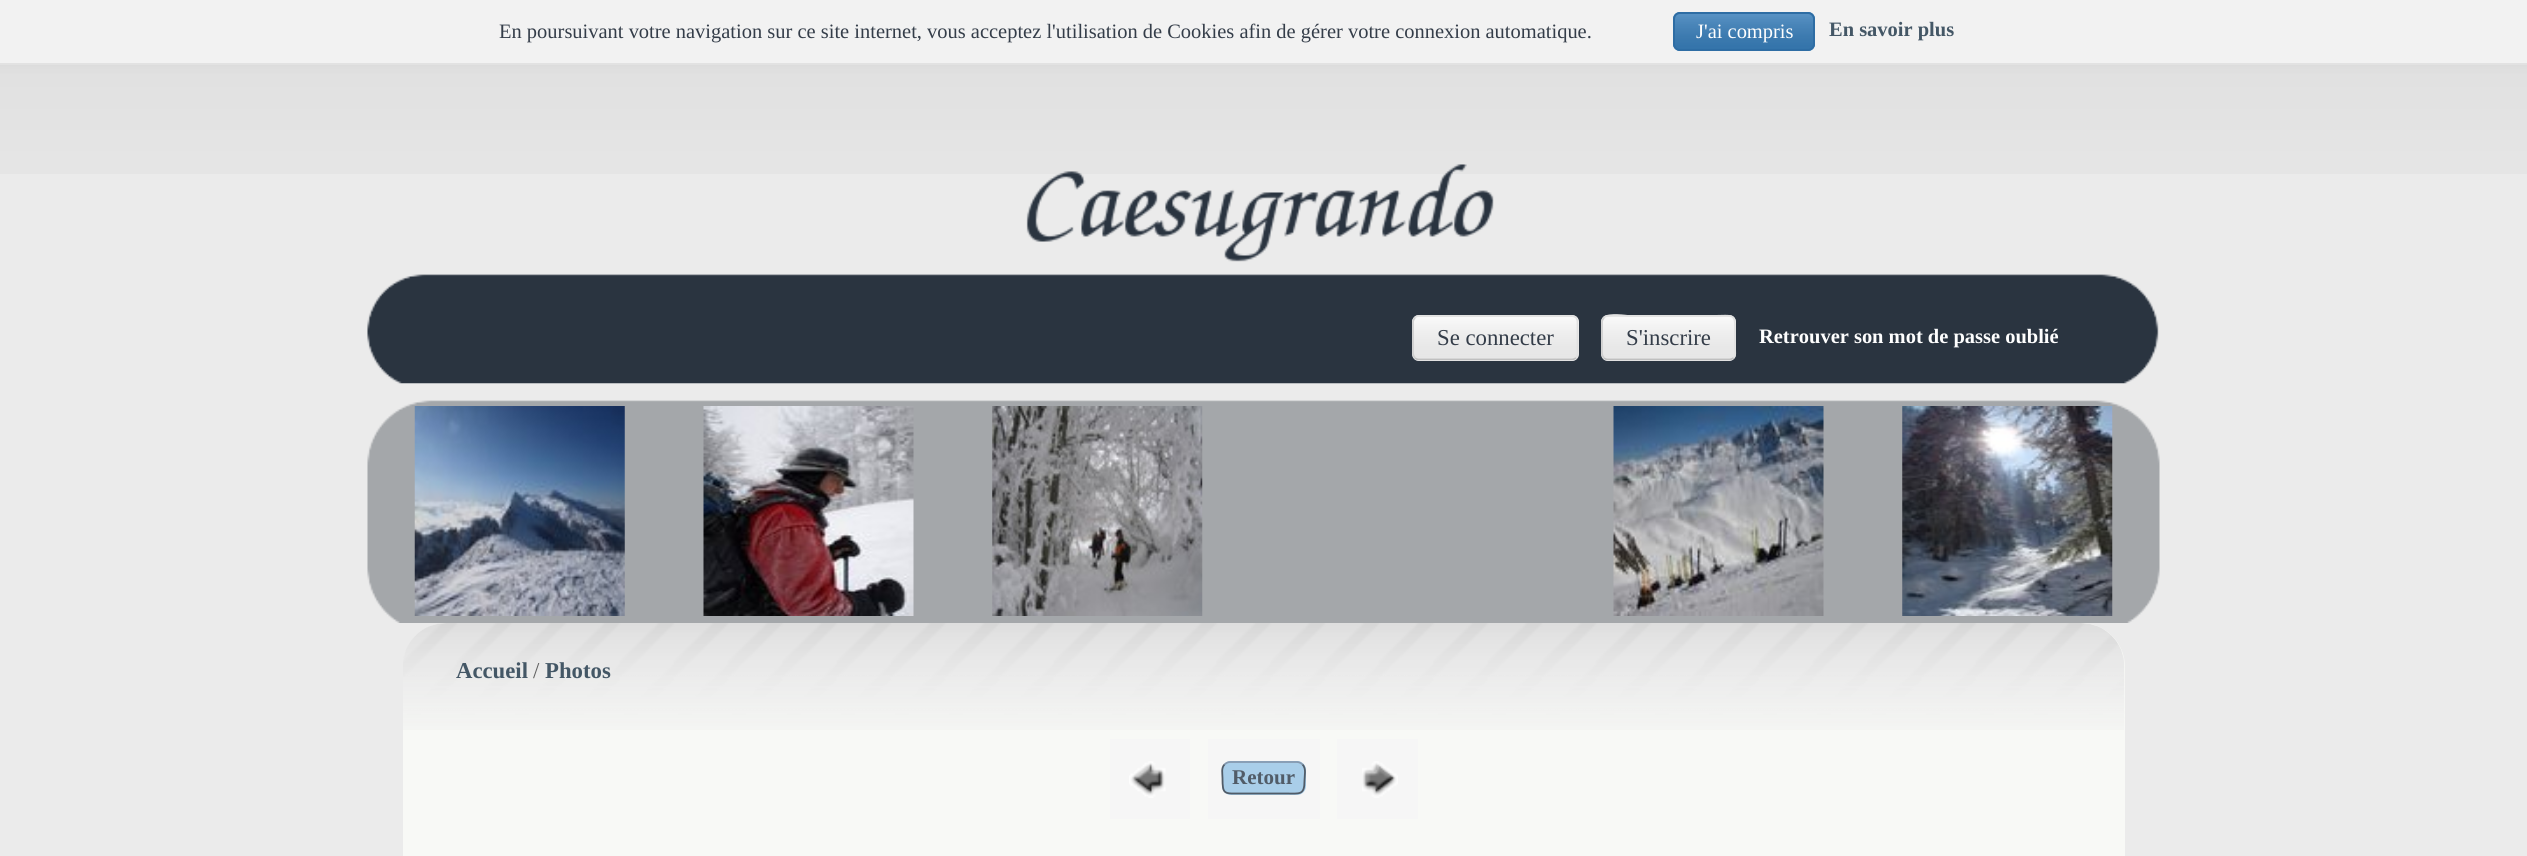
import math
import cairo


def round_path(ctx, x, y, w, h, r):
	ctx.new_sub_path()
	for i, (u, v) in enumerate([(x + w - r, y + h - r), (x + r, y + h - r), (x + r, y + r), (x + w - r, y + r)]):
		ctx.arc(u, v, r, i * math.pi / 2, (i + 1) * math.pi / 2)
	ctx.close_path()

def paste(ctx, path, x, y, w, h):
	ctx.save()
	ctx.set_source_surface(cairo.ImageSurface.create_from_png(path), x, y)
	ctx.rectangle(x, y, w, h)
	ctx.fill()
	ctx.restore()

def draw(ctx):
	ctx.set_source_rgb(0.918, 0.918, 0.918)
	ctx.paint()
	paste(ctx, 'media/1.png', 0, 65, 2527, 109)
	ctx.set_source_rgb(0.949, 0.949, 0.949)
	ctx.rectangle(0, 0, 2527, 63)
	ctx.fill()
	ctx.set_source_rgb(0.886, 0.886, 0.886)
	ctx.rectangle(0, 63, 2527, 2)
	ctx.fill()
	ctx.select_font_face('Liberation Serif')
	ctx.set_font_size(20.47)
	ctx.set_source_rgb(0.204, 0.239, 0.286)
	ctx.move_to(499, 38)
	ctx.show_text('En poursuivant votre navigation sur ce site internet, vous acceptez l\'utilisation de Cookies afin de gérer votre connexion automatique.')
	ctx.set_source_rgb(0.2, 0.478, 0.718)
	round_path(ctx, 1673, 12, 142, 39, 7)
	ctx.fill()
	ctx.save()
	round_path(ctx, 1673, 12, 142, 39, 7)
	ctx.clip()
	gradient = cairo.LinearGradient(1744, 14, 1744, 49)
	gradient.add_color_stop_rgba(0, 1, 1, 1, 0.18)
	gradient.add_color_stop_rgba(1, 0.22, 0.22, 0.22, 0.1)
	ctx.set_source(gradient)
	ctx.rectangle(1673, 14, 142, 35)
	ctx.fill()
	ctx.restore()
	round_path(ctx, 1674, 13, 140, 37, 6)
	ctx.set_source_rgb(0.18, 0.427, 0.643)
	ctx.stroke()
	ctx.set_source_rgb(0.996, 0.996, 0.996)
	ctx.move_to(1696, 38)
	ctx.show_text('J\'ai compris')
	ctx.select_font_face('Liberation Serif', cairo.FONT_SLANT_NORMAL, cairo.FONT_WEIGHT_BOLD)
	ctx.set_source_rgb(0.267, 0.341, 0.4)
	ctx.move_to(1829, 36)
	ctx.show_text('En savoir plus')
	paste(ctx, 'media/2.png', 367, 164, 1792, 220)
	ctx.set_source_rgb(0.976, 0.976, 0.976)
	round_path(ctx, 1412, 315, 167, 46, 7)
	ctx.fill()
	ctx.save()
	round_path(ctx, 1412, 315, 167, 46, 7)
	ctx.clip()
	gradient = cairo.LinearGradient(1495, 275, 1495, 317)
	gradient.add_color_stop_rgba(0, 1, 1, 1, 0.18)
	gradient.add_color_stop_rgba(1, 0.22, 0.22, 0.22, 0.1)
	ctx.set_source(gradient)
	ctx.rectangle(1412, 315, 167, 2)
	ctx.fill()
	gradient = cairo.LinearGradient(1495, 317, 1495, 359)
	gradient.add_color_stop_rgba(0, 1, 1, 1, 0.18)
	gradient.add_color_stop_rgba(1, 0.22, 0.22, 0.22, 0.1)
	ctx.set_source(gradient)
	ctx.rectangle(1412, 317, 167, 42)
	ctx.fill()
	gradient = cairo.LinearGradient(1495, 359, 1495, 401)
	gradient.add_color_stop_rgba(0, 1, 1, 1, 0.18)
	gradient.add_color_stop_rgba(1, 0.22, 0.22, 0.22, 0.1)
	ctx.set_source(gradient)
	ctx.rectangle(1412, 359, 167, 2)
	ctx.fill()
	ctx.restore()
	ctx.new_path()
	ctx.move_to(1415, 317.5)
	ctx.curve_to(1416, 316.5, 1417.5, 316, 1419, 316)
	ctx.line_to(1571.5, 316)
	ctx.curve_to(1573, 316, 1574.5, 316.5, 1576, 317.5)
	ctx.curve_to(1577, 319, 1577.5, 320.5, 1577.5, 322)
	ctx.line_to(1577.5, 353.5)
	ctx.curve_to(1577.5, 355, 1577, 356.5, 1576, 358)
	ctx.set_source_rgb(0.882, 0.882, 0.882)
	ctx.set_line_width(1.8)
	ctx.stroke()
	ctx.new_path()
	ctx.move_to(1576, 358)
	ctx.curve_to(1574.5, 359, 1573, 359.5, 1571.5, 359.5)
	ctx.line_to(1419, 359.5)
	ctx.curve_to(1417.5, 359.5, 1416, 359, 1415, 358)
	ctx.set_source_rgb(0.749, 0.749, 0.749)
	ctx.stroke()
	ctx.new_path()
	ctx.move_to(1415, 358)
	ctx.curve_to(1414, 356.5, 1413, 355, 1413, 353.5)
	ctx.line_to(1413, 322)
	ctx.curve_to(1413, 320.5, 1414, 319, 1415, 317.5)
	ctx.set_source_rgb(0.812, 0.812, 0.812)
	ctx.stroke()
	ctx.select_font_face('Liberation Serif')
	ctx.set_font_size(22.75)
	ctx.set_source_rgb(0.204, 0.239, 0.286)
	ctx.move_to(1437, 345)
	ctx.show_text('Se connecter')
	ctx.set_source_rgb(0.976, 0.976, 0.976)
	round_path(ctx, 1601, 315, 135, 46, 7)
	ctx.fill()
	ctx.save()
	round_path(ctx, 1601, 315, 135, 46, 7)
	ctx.clip()
	gradient = cairo.LinearGradient(1669, 275, 1669, 317)
	gradient.add_color_stop_rgba(0, 1, 1, 1, 0.18)
	gradient.add_color_stop_rgba(1, 0.22, 0.22, 0.22, 0.1)
	ctx.set_source(gradient)
	ctx.rectangle(1601, 315, 135, 2)
	ctx.fill()
	gradient = cairo.LinearGradient(1669, 317, 1669, 359)
	gradient.add_color_stop_rgba(0, 1, 1, 1, 0.18)
	gradient.add_color_stop_rgba(1, 0.22, 0.22, 0.22, 0.1)
	ctx.set_source(gradient)
	ctx.rectangle(1601, 317, 135, 42)
	ctx.fill()
	gradient = cairo.LinearGradient(1669, 359, 1669, 401)
	gradient.add_color_stop_rgba(0, 1, 1, 1, 0.18)
	gradient.add_color_stop_rgba(1, 0.22, 0.22, 0.22, 0.1)
	ctx.set_source(gradient)
	ctx.rectangle(1601, 359, 135, 2)
	ctx.fill()
	ctx.restore()
	ctx.new_path()
	ctx.move_to(1604, 317.5)
	ctx.curve_to(1608.5, 313, 1627.5, 316, 1628.5, 316)
	ctx.line_to(1709, 316)
	ctx.curve_to(1737.5, 316, 1735, 311.5, 1735, 338)
	ctx.line_to(1735, 348)
	ctx.curve_to(1735, 351.5, 1736, 355.5, 1733.5, 358)
	ctx.set_source_rgb(0.882, 0.882, 0.882)
	ctx.stroke()
	ctx.new_path()
	ctx.move_to(1733.5, 358)
	ctx.curve_to(1732, 359, 1730.5, 359.5, 1729, 359.5)
	ctx.line_to(1608, 359.5)
	ctx.curve_to(1606.5, 359.5, 1605, 359, 1604, 358)
	ctx.set_source_rgb(0.749, 0.749, 0.749)
	ctx.stroke()
	ctx.new_path()
	ctx.move_to(1604, 358)
	ctx.curve_to(1603, 356.5, 1602, 355, 1602, 353.5)
	ctx.line_to(1602, 322)
	ctx.curve_to(1602, 320.5, 1603, 319, 1604, 317.5)
	ctx.set_source_rgb(0.812, 0.812, 0.812)
	ctx.stroke()
	ctx.set_source_rgb(0.204, 0.239, 0.286)
	ctx.move_to(1626, 345)
	ctx.show_text('S\'inscrire')
	ctx.select_font_face('Liberation Serif', cairo.FONT_SLANT_NORMAL, cairo.FONT_WEIGHT_BOLD)
	ctx.set_font_size(20.47)
	ctx.set_source_rgb(0.996, 0.996, 0.996)
	ctx.move_to(1759, 343)
	ctx.show_text('Retrouver son mot de passe oublié')
	paste(ctx, 'media/3.png', 367, 400, 1793, 223)
	paste(ctx, 'media/4.png', 414, 406, 211, 210)
	paste(ctx, 'media/5.png', 703, 406, 211, 210)
	paste(ctx, 'media/6.png', 992, 406, 211, 210)
	paste(ctx, 'media/7.png', 1613, 406, 211, 210)
	paste(ctx, 'media/8.png', 1902, 406, 211, 210)
	ctx.set_source_rgb(0.969, 0.973, 0.961)
	round_path(ctx, 403, 623, 1722, 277, 44)
	ctx.fill()
	paste(ctx, 'media/9.png', 403, 623, 1722, 107)
	ctx.set_font_size(22.75)
	ctx.set_source_rgb(0.267, 0.341, 0.4)
	ctx.move_to(456, 678)
	ctx.show_text('Accueil')
	ctx.select_font_face('Liberation Serif')
	ctx.set_source_rgb(0.38, 0.38, 0.38)
	ctx.move_to(533, 678)
	ctx.show_text('/')
	ctx.select_font_face('Liberation Serif', cairo.FONT_SLANT_NORMAL, cairo.FONT_WEIGHT_BOLD)
	ctx.set_source_rgb(0.267, 0.341, 0.4)
	ctx.move_to(545, 678)
	ctx.show_text('Photos')
	ctx.set_source_rgb(0.961, 0.961, 0.961)
	ctx.rectangle(1110, 739, 80, 80)
	ctx.fill()
	paste(ctx, 'media/10.png', 1129, 761, 37, 37)
	ctx.rectangle(1208, 739, 112, 80)
	ctx.fill()
	ctx.set_source_rgb(0.663, 0.808, 0.914)
	round_path(ctx, 1222, 761, 84, 34, 9)
	ctx.fill()
	ctx.new_path()
	ctx.move_to(1224.5, 764.5)
	ctx.curve_to(1226, 763, 1228, 762, 1230, 762)
	ctx.line_to(1297, 762)
	ctx.curve_to(1299, 762, 1301, 763, 1302.5, 764.5)
	ctx.set_source_rgb(0.518, 0.596, 0.682)
	ctx.stroke()
	ctx.new_path()
	ctx.move_to(1302.5, 764.5)
	ctx.curve_to(1306.5, 768.5, 1304.5, 775.5, 1304.5, 780.5)
	ctx.curve_to(1304.5, 795.5, 1300, 793.5, 1285.5, 793.5)
	ctx.line_to(1241.5, 793.5)
	ctx.curve_to(1224, 793.5, 1222.5, 795, 1222.5, 778)
	ctx.curve_to(1222.5, 773.5, 1221, 768, 1224.5, 764.5)
	ctx.set_source_rgb(0.318, 0.361, 0.408)
	ctx.stroke()
	ctx.set_font_size(21)
	ctx.move_to(1232, 784)
	ctx.show_text('Retour')
	ctx.set_source_rgb(0.961, 0.961, 0.961)
	ctx.rectangle(1337, 739, 81, 80)
	ctx.fill()
	paste(ctx, 'media/11.png', 1362, 761, 36, 37)


surface = cairo.ImageSurface(cairo.FORMAT_RGB24, 2527, 856)
ctx = cairo.Context(surface)
options = cairo.FontOptions()
options.set_hint_metrics(cairo.HINT_METRICS_OFF)
options.set_hint_style(cairo.HINT_STYLE_NONE)
ctx.set_font_options(options)
ctx.set_miter_limit(4)
draw(ctx)
surface.write_to_png('image.png')
